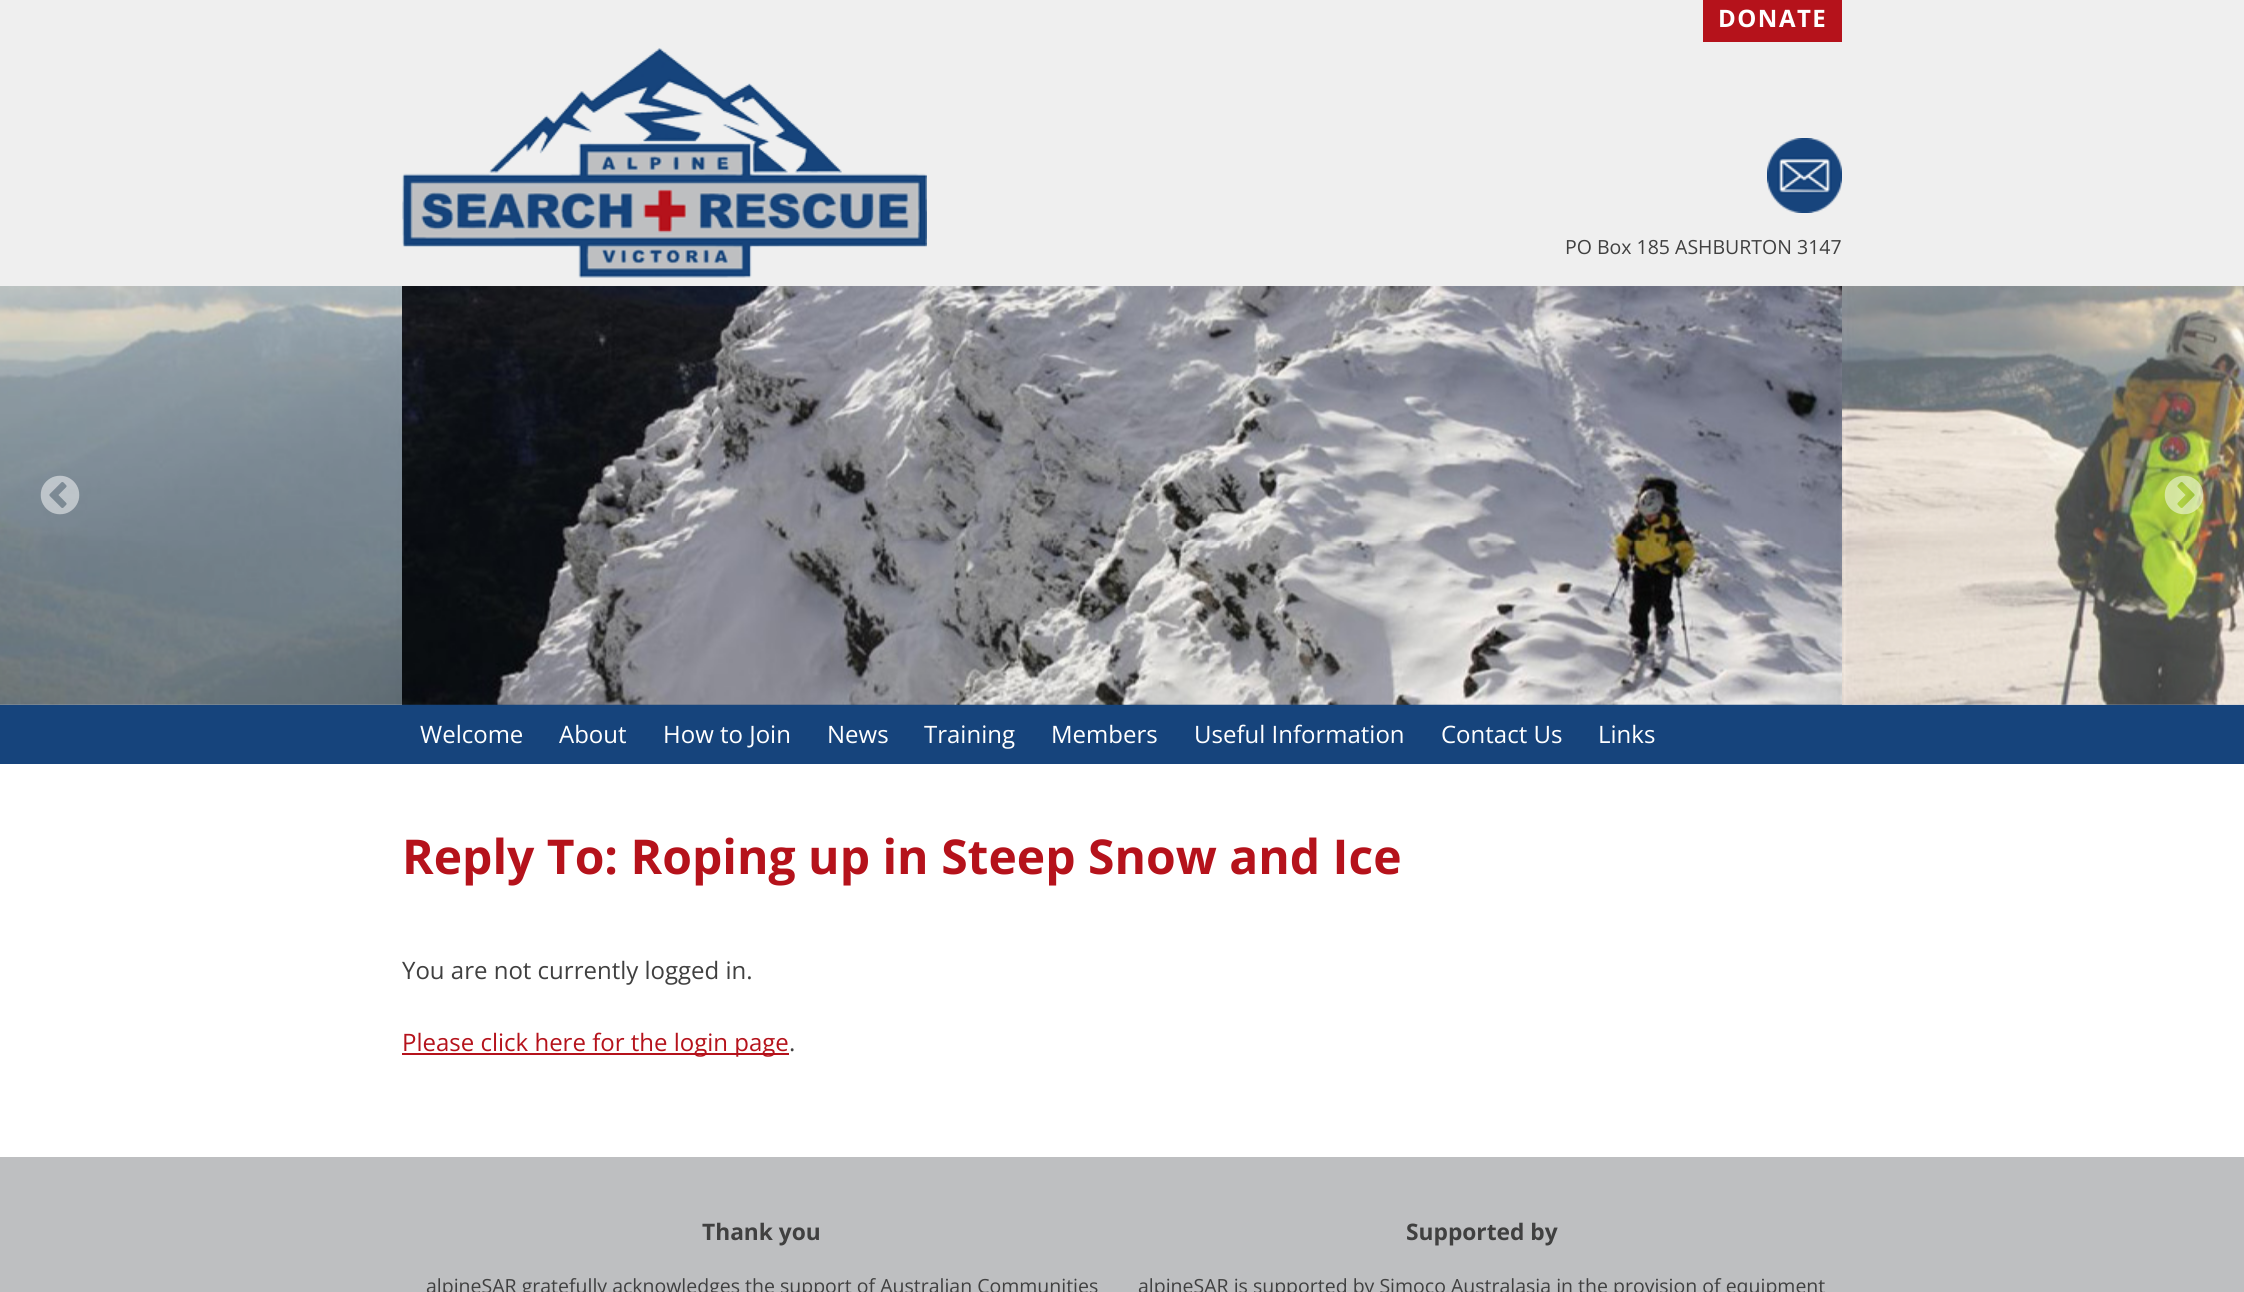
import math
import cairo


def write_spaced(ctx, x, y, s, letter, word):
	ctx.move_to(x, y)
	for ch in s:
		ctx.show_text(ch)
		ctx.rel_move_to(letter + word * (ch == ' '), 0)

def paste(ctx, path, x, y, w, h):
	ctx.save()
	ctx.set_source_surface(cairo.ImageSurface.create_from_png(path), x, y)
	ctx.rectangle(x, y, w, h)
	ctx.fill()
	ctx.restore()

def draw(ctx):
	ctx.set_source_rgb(1, 1, 1)
	ctx.paint()
	ctx.set_source_rgb(0.937, 0.937, 0.937)
	ctx.rectangle(0, 0, 2244, 704)
	ctx.fill()
	ctx.set_source_rgb(0.71, 0.071, 0.106)
	ctx.rectangle(1703, 0, 139, 42)
	ctx.fill()
	ctx.select_font_face('Open Sans', cairo.FONT_SLANT_NORMAL, cairo.FONT_WEIGHT_BOLD)
	ctx.set_font_size(24)
	ctx.set_source_rgb(1, 1, 1)
	write_spaced(ctx, 1718, 27, 'DONATE', 1.5, 0)
	paste(ctx, 'media/1.png', 402, 48, 525, 230)
	paste(ctx, 'media/2.png', 1767, 138, 75, 75)
	ctx.select_font_face('Open Sans')
	ctx.set_font_size(19.5)
	ctx.set_source_rgb(0.251, 0.251, 0.251)
	ctx.move_to(1565, 254)
	ctx.show_text('PO Box 185 ASHBURTON 3147')
	ctx.set_source_rgb(0.086, 0.267, 0.486)
	ctx.rectangle(0, 704, 2244, 60)
	ctx.fill()
	ctx.set_source_rgb(0.773, 0.816, 0.871)
	ctx.rectangle(0, 704, 402, 1)
	ctx.fill()
	paste(ctx, 'media/3.png', 0, 286, 402, 419)
	paste(ctx, 'media/4.png', 402, 286, 1440, 419)
	ctx.rectangle(1842, 704, 402, 1)
	ctx.fill()
	paste(ctx, 'media/5.png', 1842, 286, 402, 419)
	paste(ctx, 'media/6.png', 40, 475, 40, 40)
	paste(ctx, 'media/7.png', 2164, 475, 40, 40)
	ctx.set_font_size(24)
	ctx.set_source_rgb(1, 1, 1)
	for x, y, s in [
		(420, 743, 'Welcome'),
		(559, 743, 'About'),
		(663, 743, 'How to Join'),
		(827, 743, 'News'),
		(924, 743, 'Training'),
		(1051, 743, 'Members'),
		(1194, 743, 'Useful Information'),
		(1441, 743, 'Contact Us'),
		(1598, 743, 'Links'),
	]:
		ctx.move_to(x, y)
		ctx.show_text(s)
	ctx.select_font_face('Open Sans', cairo.FONT_SLANT_NORMAL, cairo.FONT_WEIGHT_BOLD)
	ctx.set_font_size(48)
	ctx.set_source_rgb(0.71, 0.071, 0.106)
	ctx.move_to(402, 874)
	ctx.show_text('Reply To: Roping up in Steep Snow and Ice')
	ctx.select_font_face('Open Sans')
	ctx.set_font_size(24)
	ctx.set_source_rgb(0.251, 0.251, 0.251)
	ctx.move_to(402, 979)
	ctx.show_text('You are not currently logged in.')
	ctx.set_source_rgb(0.71, 0.071, 0.106)
	ctx.rectangle(402, 1053, 387, 2)
	ctx.fill()
	ctx.move_to(402, 1051)
	ctx.show_text('Please click here for the login page')
	ctx.set_source_rgb(0.251, 0.251, 0.251)
	ctx.move_to(789, 1051)
	ctx.show_text('.')
	ctx.set_source_rgb(0.745, 0.749, 0.757)
	ctx.rectangle(0, 1157, 2244, 135)
	ctx.fill()
	ctx.select_font_face('Open Sans', cairo.FONT_SLANT_NORMAL, cairo.FONT_WEIGHT_BOLD)
	ctx.set_font_size(22.75)
	ctx.set_source_rgb(0.251, 0.251, 0.251)
	ctx.move_to(702, 1240)
	ctx.show_text('Thank you')
	ctx.select_font_face('Open Sans')
	ctx.set_font_size(19.5)
	ctx.move_to(426, 1293)
	ctx.show_text('alpineSAR gratefully acknowledges the support of Australian Communities')
	ctx.select_font_face('Open Sans', cairo.FONT_SLANT_NORMAL, cairo.FONT_WEIGHT_BOLD)
	ctx.set_font_size(22.75)
	ctx.move_to(1406, 1240)
	ctx.show_text('Supported by')
	ctx.select_font_face('Open Sans')
	ctx.set_font_size(19.5)
	ctx.move_to(1138, 1293)
	ctx.show_text('alpineSAR is supported by Simoco Australasia in the provision of equipment')


surface = cairo.ImageSurface(cairo.FORMAT_RGB24, 2244, 1292)
ctx = cairo.Context(surface)
options = cairo.FontOptions()
options.set_hint_metrics(cairo.HINT_METRICS_OFF)
options.set_hint_style(cairo.HINT_STYLE_NONE)
ctx.set_font_options(options)
ctx.set_miter_limit(4)
draw(ctx)
surface.write_to_png('image.png')
